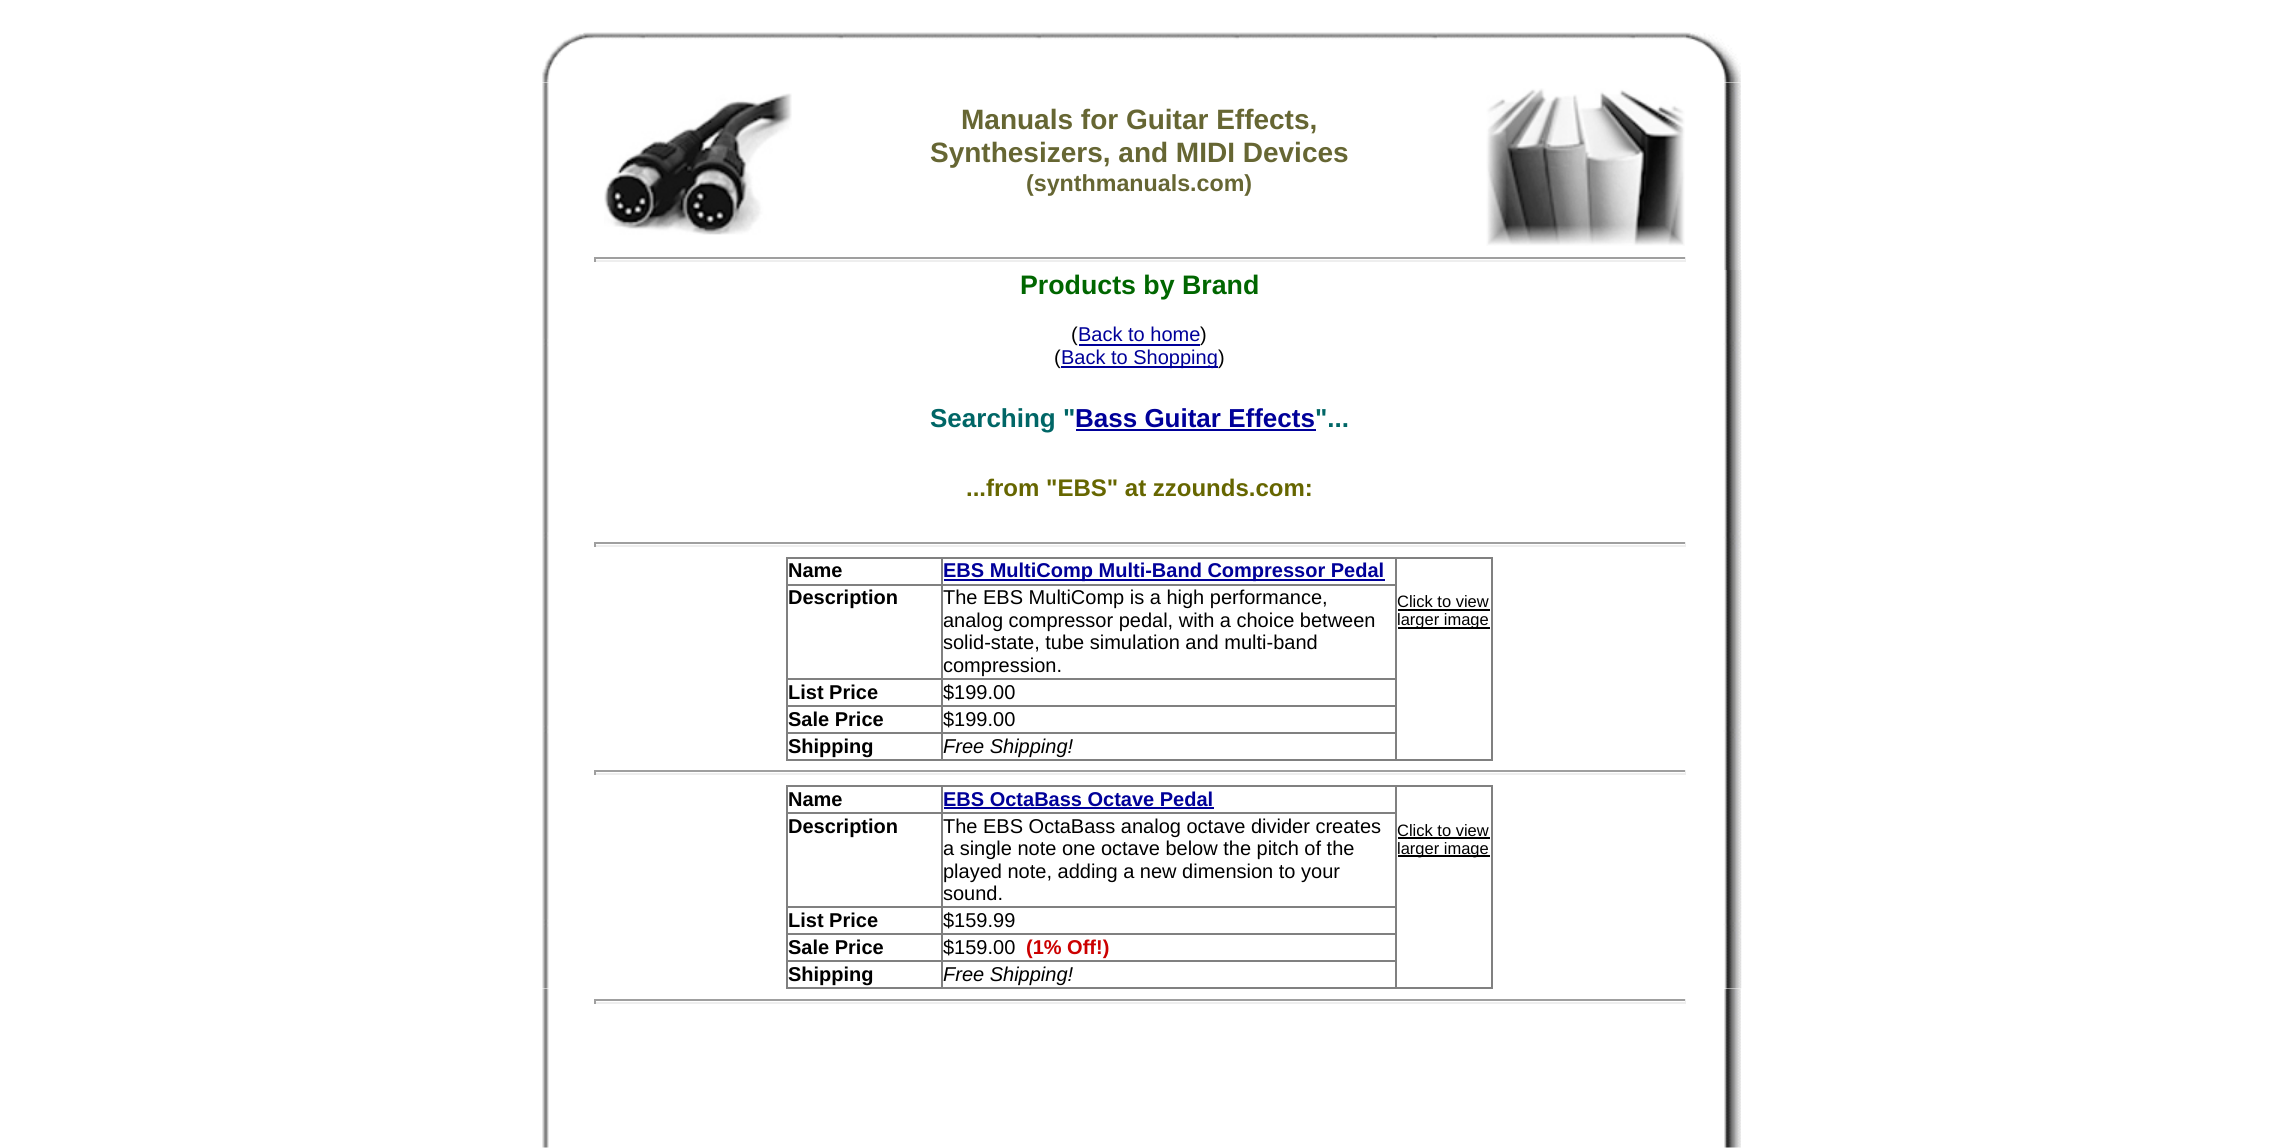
import math
import cairo


def paste(ctx, path, x, y, w, h):
	ctx.save()
	ctx.set_source_surface(cairo.ImageSurface.create_from_png(path), x, y)
	ctx.rectangle(x, y, w, h)
	ctx.fill()
	ctx.restore()

def draw(ctx):
	ctx.set_source_rgb(1, 1, 1)
	ctx.paint()
	paste(ctx, 'media/1.png', 542, 32, 52, 51)
	paste(ctx, 'media/2.png', 594, 32, 1092, 8)
	paste(ctx, 'media/3.png', 1686, 32, 55, 51)
	paste(ctx, 'media/4.png', 542, 83, 7, 187)
	paste(ctx, 'media/5.png', 604, 93, 188, 142)
	ctx.select_font_face('Liberation Sans', cairo.FONT_SLANT_NORMAL, cairo.FONT_WEIGHT_BOLD)
	ctx.set_font_size(28)
	ctx.set_source_rgb(0.4, 0.4, 0.2)
	ctx.move_to(961, 129)
	ctx.show_text('Manuals for Guitar Effects,')
	ctx.move_to(930, 162)
	ctx.show_text('Synthesizers, and MIDI Devices')
	ctx.set_font_size(23.25)
	ctx.move_to(1026, 191)
	ctx.show_text('(synthmanuals.com)')
	paste(ctx, 'media/6.png', 1486, 88, 199, 158)
	ctx.set_source_rgb(0.624, 0.624, 0.624)
	ctx.rectangle(594, 257, 1092, 2)
	ctx.fill()
	ctx.set_source_rgb(0.933, 0.933, 0.933)
	ctx.rectangle(1685, 257, 1, 5)
	ctx.rectangle(594, 260, 1092, 2)
	ctx.fill()
	ctx.set_source_rgb(0.624, 0.624, 0.624)
	ctx.rectangle(594, 257, 2, 5)
	ctx.fill()
	paste(ctx, 'media/7.png', 1686, 83, 55, 187)
	paste(ctx, 'media/8.png', 542, 270, 7, 719)
	ctx.set_font_size(26.75)
	ctx.set_source_rgb(0, 0.4, 0)
	ctx.move_to(1020, 294)
	ctx.show_text('Products by Brand')
	ctx.select_font_face('Liberation Sans')
	ctx.set_font_size(20)
	ctx.set_source_rgb(0, 0, 0)
	ctx.move_to(1071, 341)
	ctx.show_text('(')
	ctx.set_source_rgb(0, 0, 0.6)
	ctx.move_to(1078, 341)
	ctx.show_text('Back to home')
	ctx.rectangle(1079, 344, 121, 2)
	ctx.fill()
	ctx.set_source_rgb(0, 0, 0)
	ctx.move_to(1200, 341)
	ctx.show_text(')')
	ctx.move_to(1054, 364)
	ctx.show_text('(')
	ctx.set_source_rgb(0, 0, 0.6)
	ctx.rectangle(1061, 366, 157, 2)
	ctx.fill()
	ctx.move_to(1061, 364)
	ctx.show_text('Back to Shopping')
	ctx.set_source_rgb(0, 0, 0)
	ctx.move_to(1218, 364)
	ctx.show_text(')')
	ctx.select_font_face('Liberation Sans', cairo.FONT_SLANT_NORMAL, cairo.FONT_WEIGHT_BOLD)
	ctx.set_font_size(26)
	ctx.set_source_rgb(0, 0.4, 0.4)
	ctx.move_to(930, 427)
	ctx.show_text('Searching "')
	ctx.set_source_rgb(0, 0, 0.6)
	ctx.move_to(1075, 427)
	ctx.show_text('Bass Guitar Effects')
	ctx.rectangle(1076, 429, 240, 2)
	ctx.fill()
	ctx.set_source_rgb(0, 0.4, 0.4)
	ctx.move_to(1315, 427)
	ctx.show_text('"...')
	ctx.set_font_size(24)
	ctx.set_source_rgb(0.4, 0.4, 0)
	ctx.move_to(966, 496)
	ctx.show_text('...from "EBS" at zzounds.com:')
	ctx.set_source_rgb(0.624, 0.624, 0.624)
	ctx.rectangle(594, 542, 1092, 2)
	ctx.fill()
	ctx.set_source_rgb(0.933, 0.933, 0.933)
	ctx.rectangle(1685, 542, 1, 5)
	ctx.rectangle(594, 545, 1092, 2)
	ctx.fill()
	ctx.set_source_rgb(0.624, 0.624, 0.624)
	ctx.rectangle(594, 542, 2, 5)
	ctx.fill()
	ctx.set_source_rgb(0.502, 0.502, 0.502)
	ctx.rectangle(786, 557, 707, 2)
	ctx.rectangle(1491, 557, 2, 204)
	ctx.rectangle(786, 759, 707, 2)
	ctx.rectangle(786, 557, 2, 204)
	ctx.fill()
	ctx.set_font_size(20)
	ctx.set_source_rgb(0, 0, 0)
	ctx.move_to(788, 577)
	ctx.show_text('Name')
	ctx.set_source_rgb(0.502, 0.502, 0.502)
	ctx.rectangle(941, 584, 456, 2)
	ctx.rectangle(941, 678, 456, 2)
	ctx.rectangle(941, 705, 456, 2)
	ctx.rectangle(941, 732, 456, 2)
	ctx.rectangle(941, 732, 2, 29)
	ctx.rectangle(786, 732, 156, 2)
	ctx.rectangle(941, 705, 2, 29)
	ctx.rectangle(786, 705, 156, 2)
	ctx.rectangle(941, 678, 2, 29)
	ctx.rectangle(786, 678, 156, 2)
	ctx.rectangle(941, 584, 2, 96)
	ctx.rectangle(786, 584, 156, 2)
	ctx.rectangle(941, 557, 2, 28)
	ctx.fill()
	ctx.set_source_rgb(0, 0, 0.6)
	ctx.rectangle(944, 579, 441, 2)
	ctx.fill()
	ctx.move_to(943, 577)
	ctx.show_text('EBS MultiComp Multi-Band Compressor Pedal')
	ctx.set_source_rgb(0.502, 0.502, 0.502)
	ctx.rectangle(1395, 557, 2, 204)
	ctx.fill()
	ctx.select_font_face('Liberation Sans')
	ctx.set_font_size(16.5)
	ctx.set_source_rgb(0, 0, 0)
	ctx.move_to(1397, 607)
	ctx.show_text('Click to view')
	ctx.rectangle(1398, 609, 92, 2)
	ctx.fill()
	ctx.rectangle(1398, 627, 92, 2)
	ctx.fill()
	ctx.move_to(1397, 625)
	ctx.show_text('larger image')
	ctx.select_font_face('Liberation Sans', cairo.FONT_SLANT_NORMAL, cairo.FONT_WEIGHT_BOLD)
	ctx.set_font_size(20)
	ctx.move_to(788, 604)
	ctx.show_text('Description')
	ctx.select_font_face('Liberation Sans')
	for x, y, s in [
		(943, 604, 'The EBS MultiComp is a high performance,'),
		(943, 627, 'analog compressor pedal, with a choice between'),
		(943, 649, 'solid-state, tube simulation and multi-band'),
		(943, 672, 'compression.'),
	]:
		ctx.move_to(x, y)
		ctx.show_text(s)
	ctx.select_font_face('Liberation Sans', cairo.FONT_SLANT_NORMAL, cairo.FONT_WEIGHT_BOLD)
	ctx.move_to(788, 699)
	ctx.show_text('List Price')
	ctx.select_font_face('Liberation Sans')
	ctx.move_to(943, 699)
	ctx.show_text('$199.00')
	ctx.select_font_face('Liberation Sans', cairo.FONT_SLANT_NORMAL, cairo.FONT_WEIGHT_BOLD)
	ctx.move_to(788, 726)
	ctx.show_text('Sale Price')
	ctx.select_font_face('Liberation Sans')
	ctx.move_to(943, 726)
	ctx.show_text('$199.00')
	ctx.select_font_face('Liberation Sans', cairo.FONT_SLANT_NORMAL, cairo.FONT_WEIGHT_BOLD)
	ctx.move_to(788, 753)
	ctx.show_text('Shipping')
	ctx.select_font_face('Liberation Sans', cairo.FONT_SLANT_ITALIC)
	ctx.move_to(943, 753)
	ctx.show_text('Free Shipping!')
	ctx.set_source_rgb(0.624, 0.624, 0.624)
	ctx.rectangle(594, 770, 1092, 2)
	ctx.fill()
	ctx.set_source_rgb(0.933, 0.933, 0.933)
	ctx.rectangle(1685, 770, 1, 5)
	ctx.rectangle(594, 773, 1092, 2)
	ctx.fill()
	ctx.set_source_rgb(0.624, 0.624, 0.624)
	ctx.rectangle(594, 770, 2, 5)
	ctx.fill()
	ctx.set_source_rgb(0.502, 0.502, 0.502)
	ctx.rectangle(786, 785, 707, 2)
	ctx.rectangle(1491, 785, 2, 204)
	ctx.rectangle(786, 987, 707, 2)
	ctx.rectangle(786, 785, 2, 204)
	ctx.fill()
	ctx.select_font_face('Liberation Sans', cairo.FONT_SLANT_NORMAL, cairo.FONT_WEIGHT_BOLD)
	ctx.set_source_rgb(0, 0, 0)
	ctx.move_to(788, 806)
	ctx.show_text('Name')
	ctx.set_source_rgb(0.502, 0.502, 0.502)
	ctx.rectangle(941, 812, 456, 2)
	ctx.rectangle(941, 906, 456, 2)
	ctx.rectangle(941, 933, 456, 2)
	ctx.rectangle(941, 960, 456, 2)
	ctx.rectangle(941, 960, 2, 29)
	ctx.rectangle(786, 960, 156, 2)
	ctx.rectangle(941, 933, 2, 29)
	ctx.rectangle(786, 933, 156, 2)
	ctx.rectangle(941, 906, 2, 29)
	ctx.rectangle(786, 906, 156, 2)
	ctx.rectangle(941, 812, 2, 96)
	ctx.rectangle(786, 812, 156, 2)
	ctx.rectangle(941, 785, 2, 28)
	ctx.fill()
	ctx.set_source_rgb(0, 0, 0.6)
	ctx.move_to(943, 806)
	ctx.show_text('EBS OctaBass Octave Pedal')
	ctx.rectangle(944, 807, 270, 2)
	ctx.fill()
	ctx.set_source_rgb(0.502, 0.502, 0.502)
	ctx.rectangle(1395, 785, 2, 204)
	ctx.fill()
	ctx.select_font_face('Liberation Sans')
	ctx.set_font_size(16.5)
	ctx.set_source_rgb(0, 0, 0)
	ctx.move_to(1397, 836)
	ctx.show_text('Click to view')
	ctx.rectangle(1398, 837, 92, 2)
	ctx.fill()
	ctx.rectangle(1398, 855, 92, 2)
	ctx.fill()
	ctx.move_to(1397, 854)
	ctx.show_text('larger image')
	ctx.select_font_face('Liberation Sans', cairo.FONT_SLANT_NORMAL, cairo.FONT_WEIGHT_BOLD)
	ctx.set_font_size(20)
	ctx.move_to(788, 833)
	ctx.show_text('Description')
	ctx.select_font_face('Liberation Sans')
	for x, y, s in [
		(943, 833, 'The EBS OctaBass analog octave divider creates'),
		(943, 855, 'a single note one octave below the pitch of the'),
		(943, 878, 'played note, adding a new dimension to your'),
		(943, 900, 'sound.'),
	]:
		ctx.move_to(x, y)
		ctx.show_text(s)
	ctx.select_font_face('Liberation Sans', cairo.FONT_SLANT_NORMAL, cairo.FONT_WEIGHT_BOLD)
	ctx.move_to(788, 927)
	ctx.show_text('List Price')
	ctx.select_font_face('Liberation Sans')
	ctx.move_to(943, 927)
	ctx.show_text('$159.99')
	ctx.select_font_face('Liberation Sans', cairo.FONT_SLANT_NORMAL, cairo.FONT_WEIGHT_BOLD)
	ctx.move_to(788, 954)
	ctx.show_text('Sale Price')
	ctx.select_font_face('Liberation Sans')
	ctx.move_to(943, 954)
	ctx.show_text('$159.00')
	ctx.select_font_face('Liberation Sans', cairo.FONT_SLANT_NORMAL, cairo.FONT_WEIGHT_BOLD)
	ctx.set_source_rgb(0.8, 0, 0)
	ctx.move_to(1026, 954)
	ctx.show_text('(1% Off!)')
	ctx.set_source_rgb(0, 0, 0)
	ctx.move_to(788, 981)
	ctx.show_text('Shipping')
	ctx.select_font_face('Liberation Sans', cairo.FONT_SLANT_ITALIC)
	ctx.move_to(943, 981)
	ctx.show_text('Free Shipping!')
	paste(ctx, 'media/9.png', 1686, 270, 56, 719)
	paste(ctx, 'media/10.png', 542, 989, 7, 159)
	ctx.set_source_rgb(0.624, 0.624, 0.624)
	ctx.rectangle(594, 999, 1092, 2)
	ctx.fill()
	ctx.set_source_rgb(0.933, 0.933, 0.933)
	ctx.rectangle(1685, 999, 1, 5)
	ctx.rectangle(594, 1002, 1092, 2)
	ctx.fill()
	ctx.set_source_rgb(0.624, 0.624, 0.624)
	ctx.rectangle(594, 999, 2, 5)
	ctx.fill()
	paste(ctx, 'media/11.png', 1686, 989, 55, 159)


surface = cairo.ImageSurface(cairo.FORMAT_RGB24, 2283, 1148)
ctx = cairo.Context(surface)
options = cairo.FontOptions()
options.set_hint_metrics(cairo.HINT_METRICS_OFF)
options.set_hint_style(cairo.HINT_STYLE_NONE)
ctx.set_font_options(options)
ctx.set_miter_limit(4)
draw(ctx)
surface.write_to_png('image.png')
